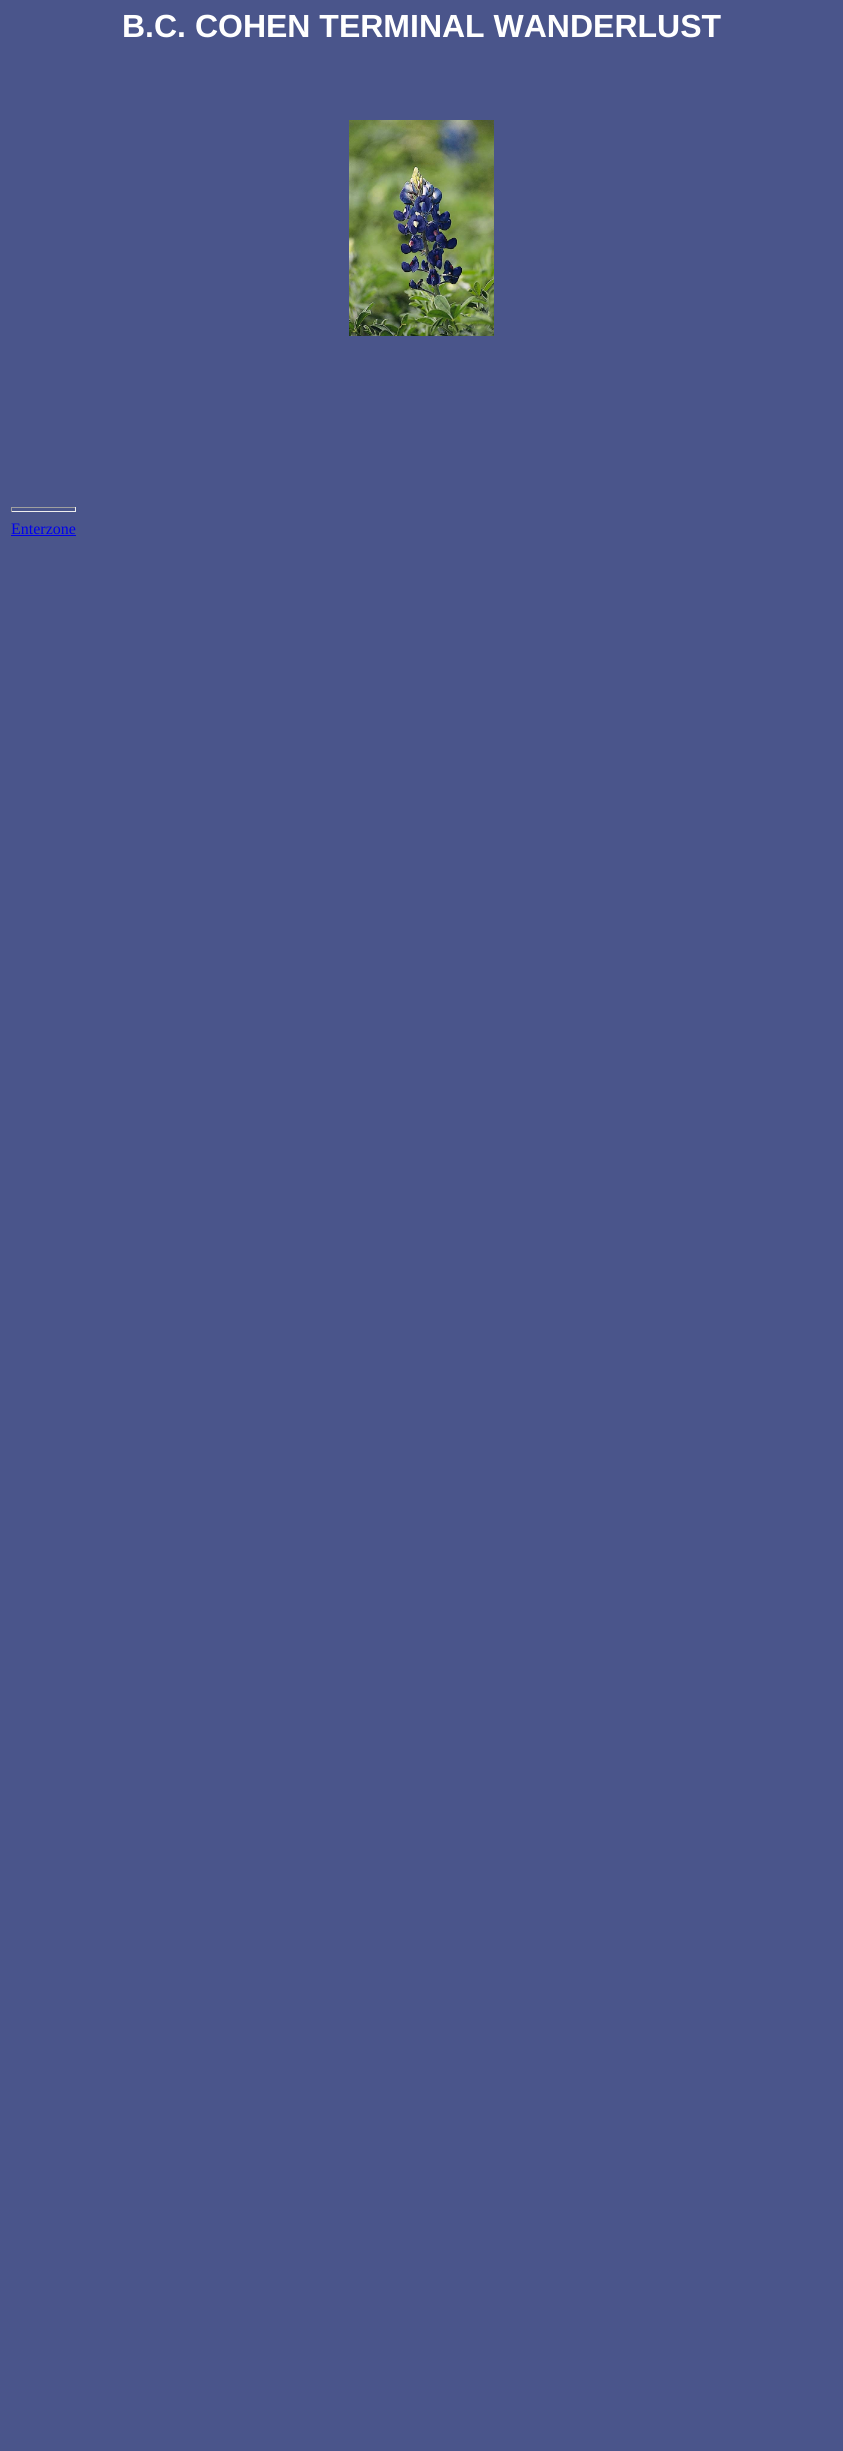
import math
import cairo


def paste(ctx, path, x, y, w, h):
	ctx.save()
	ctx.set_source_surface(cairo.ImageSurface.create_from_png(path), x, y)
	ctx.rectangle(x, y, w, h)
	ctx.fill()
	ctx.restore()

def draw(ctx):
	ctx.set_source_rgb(0.29, 0.333, 0.545)
	ctx.paint()
	ctx.select_font_face('Liberation Sans', cairo.FONT_SLANT_NORMAL, cairo.FONT_WEIGHT_BOLD)
	ctx.set_font_size(32)
	ctx.set_source_rgb(1, 1, 1)
	ctx.move_to(122, 37)
	ctx.show_text('B.C. COHEN TERMINAL WANDERLUST')
	paste(ctx, 'media/1.png', 349, 120, 145, 216)
	ctx.set_source_rgb(0.624, 0.624, 0.624)
	ctx.rectangle(11, 507, 65, 1)
	ctx.fill()
	ctx.set_source_rgb(0.933, 0.933, 0.933)
	ctx.rectangle(75, 507, 1, 5)
	ctx.rectangle(11, 511, 65, 1)
	ctx.fill()
	ctx.set_source_rgb(0.624, 0.624, 0.624)
	ctx.rectangle(11, 507, 1, 5)
	ctx.fill()
	ctx.select_font_face('Liberation Serif')
	ctx.set_font_size(16)
	ctx.set_source_rgb(0, 0, 0.933)
	ctx.move_to(11, 534)
	ctx.show_text('Enterzone')
	ctx.rectangle(11, 535, 65, 1)
	ctx.fill()


surface = cairo.ImageSurface(cairo.FORMAT_RGB24, 843, 2451)
ctx = cairo.Context(surface)
options = cairo.FontOptions()
options.set_hint_metrics(cairo.HINT_METRICS_OFF)
options.set_hint_style(cairo.HINT_STYLE_NONE)
ctx.set_font_options(options)
ctx.set_miter_limit(4)
draw(ctx)
surface.write_to_png('image.png')
